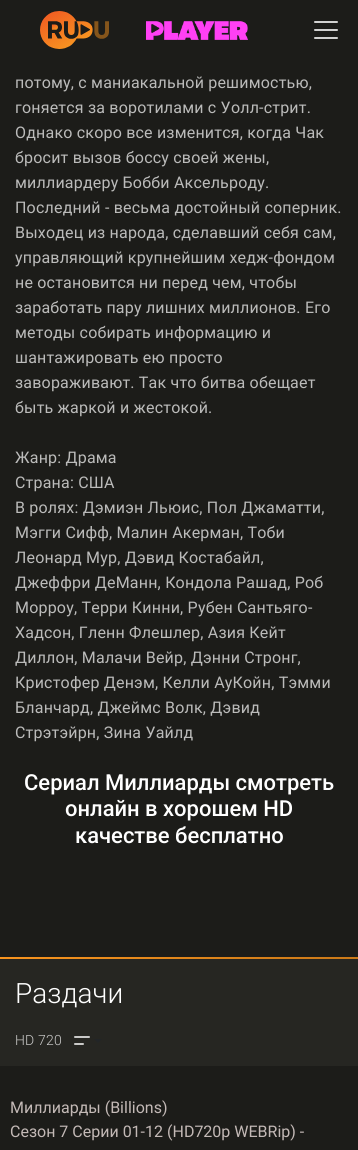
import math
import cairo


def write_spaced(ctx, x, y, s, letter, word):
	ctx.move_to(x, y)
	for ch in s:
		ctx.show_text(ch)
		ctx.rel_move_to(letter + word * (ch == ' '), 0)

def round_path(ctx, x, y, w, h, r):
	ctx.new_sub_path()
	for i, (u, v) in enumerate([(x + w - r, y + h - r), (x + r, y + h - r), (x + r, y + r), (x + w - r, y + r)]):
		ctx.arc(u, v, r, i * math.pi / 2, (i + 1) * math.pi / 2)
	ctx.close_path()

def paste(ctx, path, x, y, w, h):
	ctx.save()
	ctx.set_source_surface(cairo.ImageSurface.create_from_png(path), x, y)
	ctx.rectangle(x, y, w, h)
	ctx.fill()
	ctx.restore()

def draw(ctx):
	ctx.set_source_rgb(0.11, 0.11, 0.098)
	ctx.paint()
	paste(ctx, 'media/1.png', 40, 11, 69, 38)
	paste(ctx, 'media/2.png', 146, 21, 102, 19)
	ctx.set_source_rgb(0.824, 0.824, 0.82)
	round_path(ctx, 314, 21, 24, 2, 1)
	ctx.fill()
	round_path(ctx, 314, 29, 24, 2, 1)
	ctx.fill()
	round_path(ctx, 314, 37, 24, 2, 1)
	ctx.fill()
	ctx.select_font_face('Roboto')
	ctx.set_font_size(16)
	ctx.set_source_rgb(0.733, 0.733, 0.729)
	for x, y, s in [
		(15, 88, 'потому, с маниакальной решимостью,'),
		(15, 113, 'гоняется за воротилами с Уолл-стрит.'),
		(15, 138, 'Однако скоро все изменится, когда Чак'),
		(15, 163, 'бросит вызов боссу своей жены,'),
		(15, 188, 'миллиардеру Бобби Аксельроду.'),
		(15, 213, 'Последний - весьма достойный соперник.'),
		(15, 238, 'Выходец из народа, сделавший себя сам,'),
		(15, 263, 'управляющий крупнейшим хедж-фондом'),
		(15, 288, 'не остановится ни перед чем, чтобы'),
		(15, 313, 'заработать пару лишних миллионов. Его'),
		(15, 338, 'методы собирать информацию и'),
		(15, 363, 'шантажировать ею просто'),
		(15, 388, 'завораживают. Так что битва обещает'),
		(15, 413, 'быть жаркой и жестокой.'),
		(15, 463, 'Жанр: Драма'),
		(15, 488, 'Страна: США'),
		(15, 513, 'В ролях: Дэмиэн Льюис, Пол Джаматти,'),
		(15, 538, 'Мэгги Сифф, Малин Акерман, Тоби'),
		(15, 563, 'Леонард Мур, Дэвид Костабайл,'),
		(15, 588, 'Джеффри ДеМанн, Кондола Рашад, Роб'),
		(15, 613, 'Морроу, Терри Кинни, Рубен Сантьяго-'),
		(15, 638, 'Хадсон, Гленн Флешлер, Азия Кейт'),
		(15, 663, 'Диллон, Малачи Вейр, Дэнни Стронг,'),
		(15, 688, 'Кристофер Денэм, Келли АуКойн, Тэмми'),
		(15, 713, 'Бланчард, Джеймс Волк, Дэвид'),
		(15, 738, 'Стрэтэйрн, Зина Уайлд'),
	]:
		write_spaced(ctx, x, y, s, 0.2, 0)
	ctx.select_font_face('Roboto Medium')
	ctx.set_font_size(22)
	ctx.set_source_rgb(1, 1, 1)
	for x, y, s in [
		(24, 790, 'Сериал Миллиарды смотреть'),
		(65, 816, 'онлайн в хорошем HD'),
		(75, 843, 'качестве бесплатно'),
	]:
		ctx.move_to(x, y)
		ctx.show_text(s)
	ctx.set_source_rgb(0.149, 0.149, 0.133)
	ctx.rectangle(0, 959, 358, 107)
	ctx.fill()
	gradient = cairo.LinearGradient(0, 958, 358, 958)
	gradient.add_color_stop_rgba(0, 0.973, 0.58, 0.118, 1)
	gradient.add_color_stop_rgba(1, 0.796, 0.475, 0.094, 1)
	ctx.set_source(gradient)
	ctx.rectangle(0, 957, 358, 2)
	ctx.fill()
	ctx.select_font_face('Roboto Light')
	ctx.set_font_size(28)
	ctx.set_source_rgb(1, 1, 1)
	ctx.move_to(15, 1003)
	ctx.show_text('Раздачи')
	ctx.set_font_size(14)
	ctx.set_source_rgb(0.788, 0.788, 0.784)
	write_spaced(ctx, 15, 1045, 'HD 720', 0.2, 0)
	round_path(ctx, 74, 1036, 16, 2, 1)
	ctx.fill()
	round_path(ctx, 74, 1043, 10, 2, 1)
	ctx.fill()
	ctx.set_source_rgb(0.133, 0.145, 0.153)
	ctx.new_path()
	ctx.move_to(94, 1039)
	ctx.line_to(102, 1039)
	ctx.line_to(98, 1043)
	ctx.close_path()
	ctx.fill()
	ctx.select_font_face('Roboto')
	ctx.set_font_size(16)
	ctx.set_source_rgb(0.765, 0.725, 0.714)
	ctx.move_to(10, 1113)
	ctx.show_text('Миллиарды (Billions)')
	ctx.move_to(10, 1137)
	ctx.show_text('Сезон 7 Серии 01-12 (HD720p WEBRip) -')


surface = cairo.ImageSurface(cairo.FORMAT_RGB24, 358, 1150)
ctx = cairo.Context(surface)
options = cairo.FontOptions()
options.set_hint_metrics(cairo.HINT_METRICS_OFF)
options.set_hint_style(cairo.HINT_STYLE_NONE)
ctx.set_font_options(options)
ctx.set_miter_limit(4)
draw(ctx)
surface.write_to_png('image.png')
